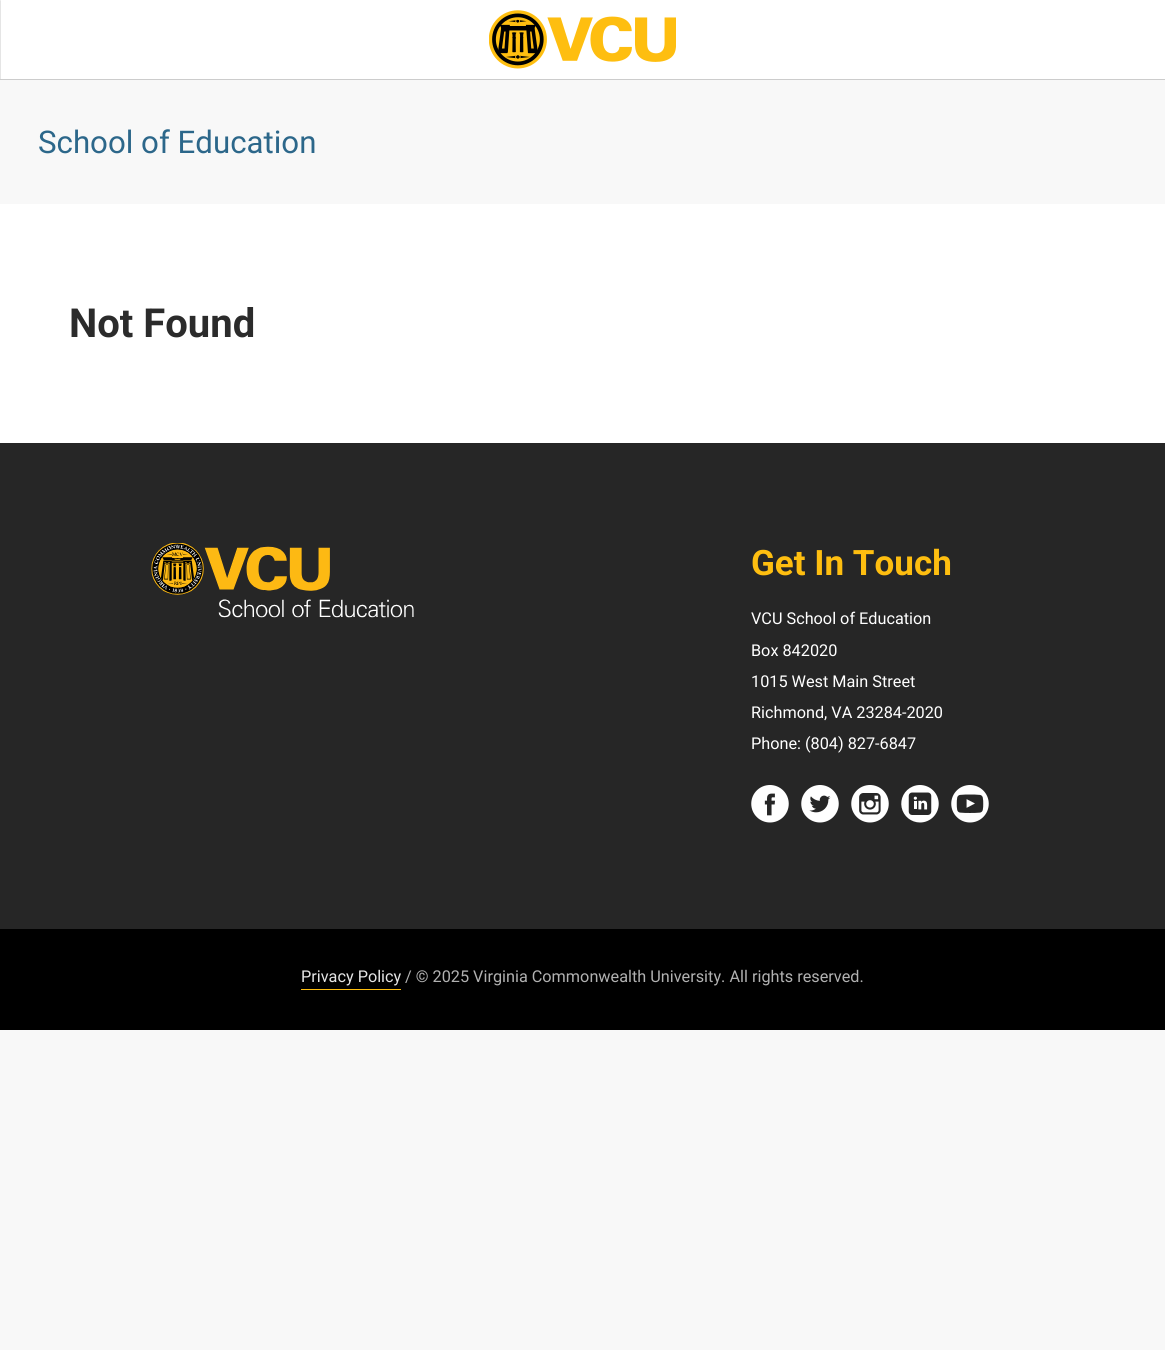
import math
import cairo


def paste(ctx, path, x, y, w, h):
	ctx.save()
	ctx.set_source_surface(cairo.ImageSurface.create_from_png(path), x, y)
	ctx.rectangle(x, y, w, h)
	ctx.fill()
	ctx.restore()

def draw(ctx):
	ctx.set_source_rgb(0.969, 0.969, 0.969)
	ctx.paint()
	ctx.set_source_rgb(1, 1, 1)
	ctx.rectangle(1, 0, 1164, 79)
	ctx.fill()
	ctx.set_source_rgb(0.8, 0.8, 0.8)
	ctx.rectangle(0, 79, 1165, 1)
	ctx.fill()
	ctx.set_source_rgb(0.898, 0.898, 0.898)
	ctx.rectangle(0, 0, 1, 79)
	ctx.fill()
	ctx.set_source_rgb(1, 1, 1)
	ctx.new_path()
	ctx.move_to(-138, 0)
	ctx.line_to(-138, 80)
	ctx.line_to(1, 0)
	ctx.close_path()
	ctx.fill()
	paste(ctx, 'media/1.png', 489, 10, 187, 59)
	ctx.select_font_face('Roboto')
	ctx.set_font_size(31.25)
	ctx.set_source_rgb(0.173, 0.404, 0.541)
	ctx.move_to(38, 153)
	ctx.show_text('School of Education')
	ctx.set_source_rgb(1, 1, 1)
	ctx.rectangle(0, 204, 1165, 239)
	ctx.fill()
	ctx.select_font_face('Roboto', cairo.FONT_SLANT_NORMAL, cairo.FONT_WEIGHT_BOLD)
	ctx.set_font_size(40)
	ctx.set_source_rgb(0.169, 0.169, 0.169)
	ctx.move_to(69, 337)
	ctx.show_text('Not Found')
	ctx.set_source_rgb(0.149, 0.149, 0.149)
	ctx.rectangle(0, 443, 1165, 486)
	ctx.fill()
	paste(ctx, 'media/2.png', 151, 543, 263, 75)
	ctx.set_font_size(35)
	ctx.set_source_rgb(0.996, 0.745, 0.063)
	ctx.move_to(751, 575)
	ctx.show_text('Get In Touch')
	ctx.select_font_face('Roboto')
	ctx.set_font_size(16.25)
	ctx.set_source_rgb(1, 1, 1)
	for x, y, s in [
		(751, 624, 'VCU School of Education'),
		(751, 656, 'Box 842020'),
		(751, 687, '1015 West Main Street'),
		(751, 718, 'Richmond, VA 23284-2020'),
		(751, 749, 'Phone: (804) 827-6847'),
	]:
		ctx.move_to(x, y)
		ctx.show_text(s)
	paste(ctx, 'media/3.png', 751, 785, 38, 38)
	paste(ctx, 'media/4.png', 801, 785, 38, 38)
	paste(ctx, 'media/5.png', 851, 785, 38, 38)
	paste(ctx, 'media/6.png', 901, 785, 38, 38)
	paste(ctx, 'media/7.png', 951, 785, 38, 38)
	ctx.set_source_rgb(0, 0, 0)
	ctx.rectangle(0, 929, 1165, 101)
	ctx.fill()
	ctx.set_source_rgb(0.898, 0.898, 0.898)
	ctx.move_to(301, 982)
	ctx.show_text('Privacy Policy')
	ctx.set_source_rgb(0.996, 0.745, 0.063)
	ctx.rectangle(301, 989, 100, 1)
	ctx.fill()
	ctx.set_source_rgb(0.694, 0.694, 0.694)
	ctx.move_to(405, 982)
	ctx.show_text('/ © 2025 Virginia Commonwealth University. All rights reserved.')


surface = cairo.ImageSurface(cairo.FORMAT_RGB24, 1165, 1350)
ctx = cairo.Context(surface)
options = cairo.FontOptions()
options.set_hint_metrics(cairo.HINT_METRICS_OFF)
options.set_hint_style(cairo.HINT_STYLE_NONE)
ctx.set_font_options(options)
ctx.set_miter_limit(4)
draw(ctx)
surface.write_to_png('image.png')
